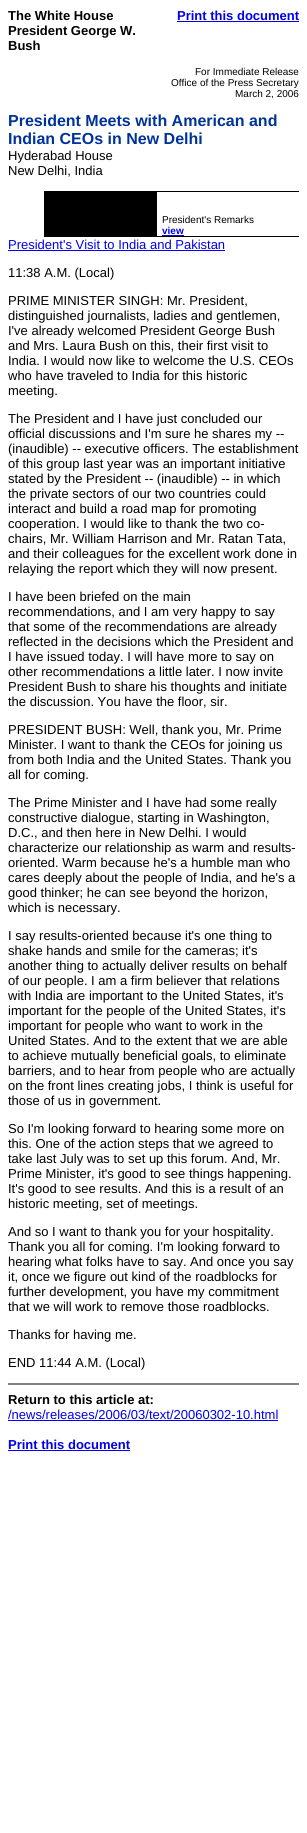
import math
import cairo


def draw(ctx):
	ctx.set_source_rgb(1, 1, 1)
	ctx.paint()
	ctx.select_font_face('Liberation Sans', cairo.FONT_SLANT_NORMAL, cairo.FONT_WEIGHT_BOLD)
	ctx.set_font_size(13)
	ctx.set_source_rgb(0, 0, 0)
	for x, y, s in [
		(8, 20, 'The White House'),
		(8, 35, 'President George W.'),
		(8, 50, 'Bush'),
	]:
		ctx.move_to(x, y)
		ctx.show_text(s)
	ctx.set_source_rgb(0, 0, 0.933)
	ctx.move_to(177, 20)
	ctx.show_text('Print this document')
	ctx.rectangle(177, 21, 122, 1)
	ctx.fill()
	ctx.select_font_face('Liberation Sans')
	ctx.set_font_size(10)
	ctx.set_source_rgb(0, 0, 0)
	for x, y, s in [
		(195, 75, 'For Immediate Release'),
		(171, 86, 'Office of the Press Secretary'),
		(235, 97, 'March 2, 2006'),
	]:
		ctx.move_to(x, y)
		ctx.show_text(s)
	ctx.select_font_face('Liberation Sans', cairo.FONT_SLANT_NORMAL, cairo.FONT_WEIGHT_BOLD)
	ctx.set_font_size(16)
	ctx.set_source_rgb(0, 0.2, 0.6)
	ctx.move_to(8, 126)
	ctx.show_text('President Meets with American and')
	ctx.move_to(8, 144)
	ctx.show_text('Indian CEOs in New Delhi')
	ctx.select_font_face('Liberation Sans')
	ctx.set_font_size(13)
	ctx.set_source_rgb(0, 0, 0)
	ctx.move_to(8, 160)
	ctx.show_text('Hyderabad House')
	ctx.move_to(8, 175)
	ctx.show_text('New Delhi, India')
	ctx.rectangle(44, 191, 255, 1)
	ctx.fill()
	ctx.rectangle(44, 192, 113, 44)
	ctx.fill()
	ctx.set_font_size(10)
	ctx.move_to(162, 223)
	ctx.show_text('President\'s Remarks')
	ctx.select_font_face('Liberation Sans', cairo.FONT_SLANT_NORMAL, cairo.FONT_WEIGHT_BOLD)
	ctx.set_source_rgb(0, 0, 0.933)
	ctx.move_to(162, 234)
	ctx.show_text('view')
	ctx.rectangle(162, 235, 22, 1)
	ctx.fill()
	ctx.set_source_rgb(0, 0, 0)
	ctx.rectangle(44, 236, 255, 1)
	ctx.fill()
	ctx.select_font_face('Liberation Sans')
	ctx.set_font_size(13)
	ctx.set_source_rgb(0, 0, 0.933)
	ctx.move_to(8, 249)
	ctx.show_text('President\'s Visit to India and Pakistan')
	ctx.rectangle(8, 250, 217, 1)
	ctx.fill()
	ctx.set_source_rgb(0, 0, 0)
	for x, y, s in [
		(8, 277, '11:38 A.M. (Local)'),
		(8, 305, 'PRIME MINISTER SINGH: Mr. President,'),
		(8, 320, 'distinguished journalists, ladies and gentlemen,'),
		(8, 335, 'I\'ve already welcomed President George Bush'),
		(8, 350, 'and Mrs. Laura Bush on this, their first visit to'),
		(8, 365, 'India. I would now like to welcome the U.S. CEOs'),
		(8, 380, 'who have traveled to India for this historic'),
		(8, 395, 'meeting.'),
		(8, 423, 'The President and I have just concluded our'),
		(8, 438, 'official discussions and I\'m sure he shares my --'),
		(8, 453, '(inaudible) -- executive officers. The establishment'),
		(8, 468, 'of this group last year was an important initiative'),
		(8, 483, 'stated by the President -- (inaudible) -- in which'),
		(8, 498, 'the private sectors of our two countries could'),
		(8, 513, 'interact and build a road map for promoting'),
		(8, 528, 'cooperation. I would like to thank the two co-'),
		(8, 543, 'chairs, Mr. William Harrison and Mr. Ratan Tata,'),
		(8, 558, 'and their colleagues for the excellent work done in'),
		(8, 573, 'relaying the report which they will now present.'),
		(8, 601, 'I have been briefed on the main'),
		(8, 616, 'recommendations, and I am very happy to say'),
		(8, 631, 'that some of the recommendations are already'),
		(8, 646, 'reflected in the decisions which the President and'),
		(8, 661, 'I have issued today. I will have more to say on'),
		(8, 676, 'other recommendations a little later. I now invite'),
		(8, 691, 'President Bush to share his thoughts and initiate'),
		(8, 706, 'the discussion. You have the floor, sir.'),
		(8, 734, 'PRESIDENT BUSH: Well, thank you, Mr. Prime'),
		(8, 749, 'Minister. I want to thank the CEOs for joining us'),
		(8, 764, 'from both India and the United States. Thank you'),
		(8, 779, 'all for coming.'),
		(8, 807, 'The Prime Minister and I have had some really'),
		(8, 822, 'constructive dialogue, starting in Washington,'),
		(8, 837, 'D.C., and then here in New Delhi. I would'),
		(8, 852, 'characterize our relationship as warm and results-'),
		(8, 867, 'oriented. Warm because he\'s a humble man who'),
		(8, 882, 'cares deeply about the people of India, and he\'s a'),
		(8, 897, 'good thinker; he can see beyond the horizon,'),
		(8, 912, 'which is necessary.'),
		(8, 940, 'I say results-oriented because it\'s one thing to'),
		(8, 955, 'shake hands and smile for the cameras; it\'s'),
		(8, 970, 'another thing to actually deliver results on behalf'),
		(8, 985, 'of our people. I am a firm believer that relations'),
		(8, 1000, 'with India are important to the United States, it\'s'),
		(8, 1015, 'important for the people of the United States, it\'s'),
		(8, 1030, 'important for people who want to work in the'),
		(8, 1045, 'United States. And to the extent that we are able'),
		(8, 1060, 'to achieve mutually beneficial goals, to eliminate'),
		(8, 1075, 'barriers, and to hear from people who are actually'),
		(8, 1090, 'on the front lines creating jobs, I think is useful for'),
		(8, 1105, 'those of us in government.'),
		(8, 1133, 'So I\'m looking forward to hearing some more on'),
		(8, 1148, 'this. One of the action steps that we agreed to'),
		(8, 1163, 'take last July was to set up this forum. And, Mr.'),
		(8, 1178, 'Prime Minister, it\'s good to see things happening.'),
		(8, 1193, 'It\'s good to see results. And this is a result of an'),
		(8, 1208, 'historic meeting, set of meetings.'),
		(8, 1236, 'And so I want to thank you for your hospitality.'),
		(8, 1251, 'Thank you all for coming. I\'m looking forward to'),
		(8, 1266, 'hearing what folks have to say. And once you say'),
		(8, 1281, 'it, once we figure out kind of the roadblocks for'),
		(8, 1296, 'further development, you have my commitment'),
		(8, 1311, 'that we will work to remove those roadblocks.'),
		(8, 1339, 'Thanks for having me.'),
		(8, 1367, 'END 11:44 A.M. (Local)'),
	]:
		ctx.move_to(x, y)
		ctx.show_text(s)
	ctx.set_source_rgb(0.502, 0.502, 0.502)
	ctx.rectangle(8, 1383, 291, 2)
	ctx.fill()
	ctx.select_font_face('Liberation Sans', cairo.FONT_SLANT_NORMAL, cairo.FONT_WEIGHT_BOLD)
	ctx.set_source_rgb(0, 0, 0)
	ctx.move_to(8, 1404)
	ctx.show_text('Return to this article at:')
	ctx.select_font_face('Liberation Sans')
	ctx.set_source_rgb(0, 0, 0.933)
	ctx.move_to(8, 1419)
	ctx.show_text('/news/releases/2006/03/text/20060302-10.html')
	ctx.rectangle(8, 1420, 270, 1)
	ctx.fill()
	ctx.select_font_face('Liberation Sans', cairo.FONT_SLANT_NORMAL, cairo.FONT_WEIGHT_BOLD)
	ctx.move_to(8, 1449)
	ctx.show_text('Print this document')
	ctx.rectangle(8, 1450, 122, 1)
	ctx.fill()


surface = cairo.ImageSurface(cairo.FORMAT_RGB24, 307, 1833)
ctx = cairo.Context(surface)
options = cairo.FontOptions()
options.set_hint_metrics(cairo.HINT_METRICS_OFF)
options.set_hint_style(cairo.HINT_STYLE_NONE)
ctx.set_font_options(options)
ctx.set_miter_limit(4)
draw(ctx)
surface.write_to_png('image.png')
